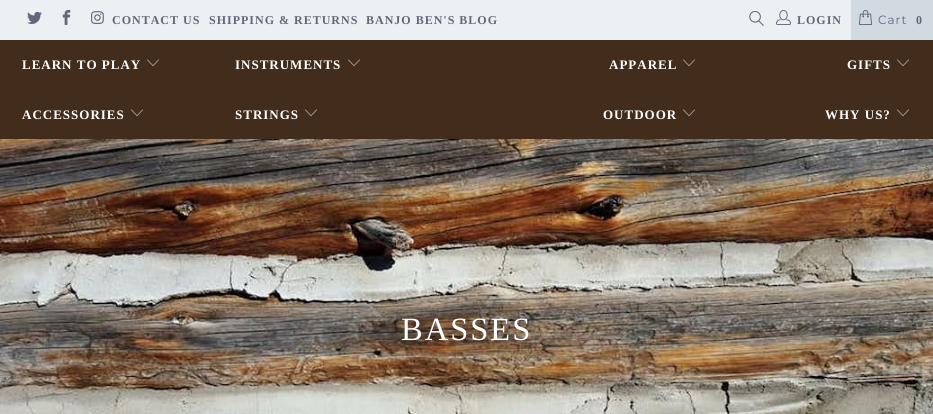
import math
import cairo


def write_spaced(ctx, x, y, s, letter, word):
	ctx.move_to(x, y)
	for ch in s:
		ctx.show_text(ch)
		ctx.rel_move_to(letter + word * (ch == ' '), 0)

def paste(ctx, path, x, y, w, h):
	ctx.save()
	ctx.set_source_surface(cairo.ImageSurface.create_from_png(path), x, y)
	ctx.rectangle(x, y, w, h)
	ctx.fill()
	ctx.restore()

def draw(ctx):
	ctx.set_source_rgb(0.259, 0.173, 0.106)
	ctx.paint()
	ctx.set_source_rgb(0.925, 0.941, 0.953)
	ctx.rectangle(0, 0, 851, 40)
	ctx.fill()
	paste(ctx, 'media/1.png', 27, 11, 15, 13)
	paste(ctx, 'media/2.png', 62, 9, 9, 16)
	paste(ctx, 'media/3.png', 91, 11, 13, 13)
	ctx.select_font_face('Liberation Serif', cairo.FONT_SLANT_NORMAL, cairo.FONT_WEIGHT_BOLD)
	ctx.set_font_size(12)
	ctx.set_source_rgb(0.384, 0.404, 0.482)
	for x, y, s in [
		(112, 24, 'CONTACT US'),
		(209, 24, 'SHIPPING & RETURNS'),
		(366, 24, 'BANJO BEN\'S BLOG'),
	]:
		write_spaced(ctx, x, y, s, 1, 0)
	paste(ctx, 'media/4.png', 749, 11, 15, 15)
	paste(ctx, 'media/5.png', 776, 9, 15, 16)
	write_spaced(ctx, 797, 24, 'LOGIN', 1, 0)
	ctx.set_source_rgb(0.82, 0.851, 0.882)
	ctx.rectangle(851, 0, 82, 40)
	ctx.fill()
	paste(ctx, 'media/6.png', 859, 10, 13, 15)
	ctx.select_font_face('Montserrat')
	ctx.set_source_rgb(0.384, 0.404, 0.482)
	write_spaced(ctx, 878, 24, 'Cart', 1, 0)
	ctx.select_font_face('Liberation Serif', cairo.FONT_SLANT_NORMAL, cairo.FONT_WEIGHT_BOLD)
	write_spaced(ctx, 916, 24, '0', 1, 0)
	ctx.set_font_size(13)
	ctx.set_source_rgb(1, 1, 1)
	write_spaced(ctx, 22, 69, 'LEARN TO PLAY', 1, 0)
	paste(ctx, 'media/7.png', 147, 59, 12, 7)
	write_spaced(ctx, 235, 69, 'INSTRUMENTS', 1, 0)
	paste(ctx, 'media/7.png', 348, 59, 12, 7)
	write_spaced(ctx, 22, 119, 'ACCESSORIES', 1, 0)
	paste(ctx, 'media/7.png', 131, 109, 12, 7)
	write_spaced(ctx, 235, 119, 'STRINGS', 1, 0)
	paste(ctx, 'media/7.png', 305, 109, 12, 7)
	write_spaced(ctx, 609, 69, 'APPAREL', 1, 0)
	paste(ctx, 'media/7.png', 683, 59, 12, 7)
	write_spaced(ctx, 847, 69, 'GIFTS', 1, 0)
	paste(ctx, 'media/7.png', 897, 59, 12, 7)
	write_spaced(ctx, 603, 119, 'OUTDOOR', 1, 0)
	paste(ctx, 'media/7.png', 683, 109, 12, 7)
	write_spaced(ctx, 825, 119, 'WHY US?', 1, 0)
	paste(ctx, 'media/7.png', 897, 109, 12, 7)
	paste(ctx, 'media/8.png', 0, 139, 933, 275)
	ctx.select_font_face('Liberation Serif')
	ctx.set_font_size(32.5)
	write_spaced(ctx, 401, 340, 'BASSES', 2, 0)


surface = cairo.ImageSurface(cairo.FORMAT_RGB24, 933, 414)
ctx = cairo.Context(surface)
options = cairo.FontOptions()
options.set_hint_metrics(cairo.HINT_METRICS_OFF)
options.set_hint_style(cairo.HINT_STYLE_NONE)
ctx.set_font_options(options)
ctx.set_miter_limit(4)
draw(ctx)
surface.write_to_png('image.png')
